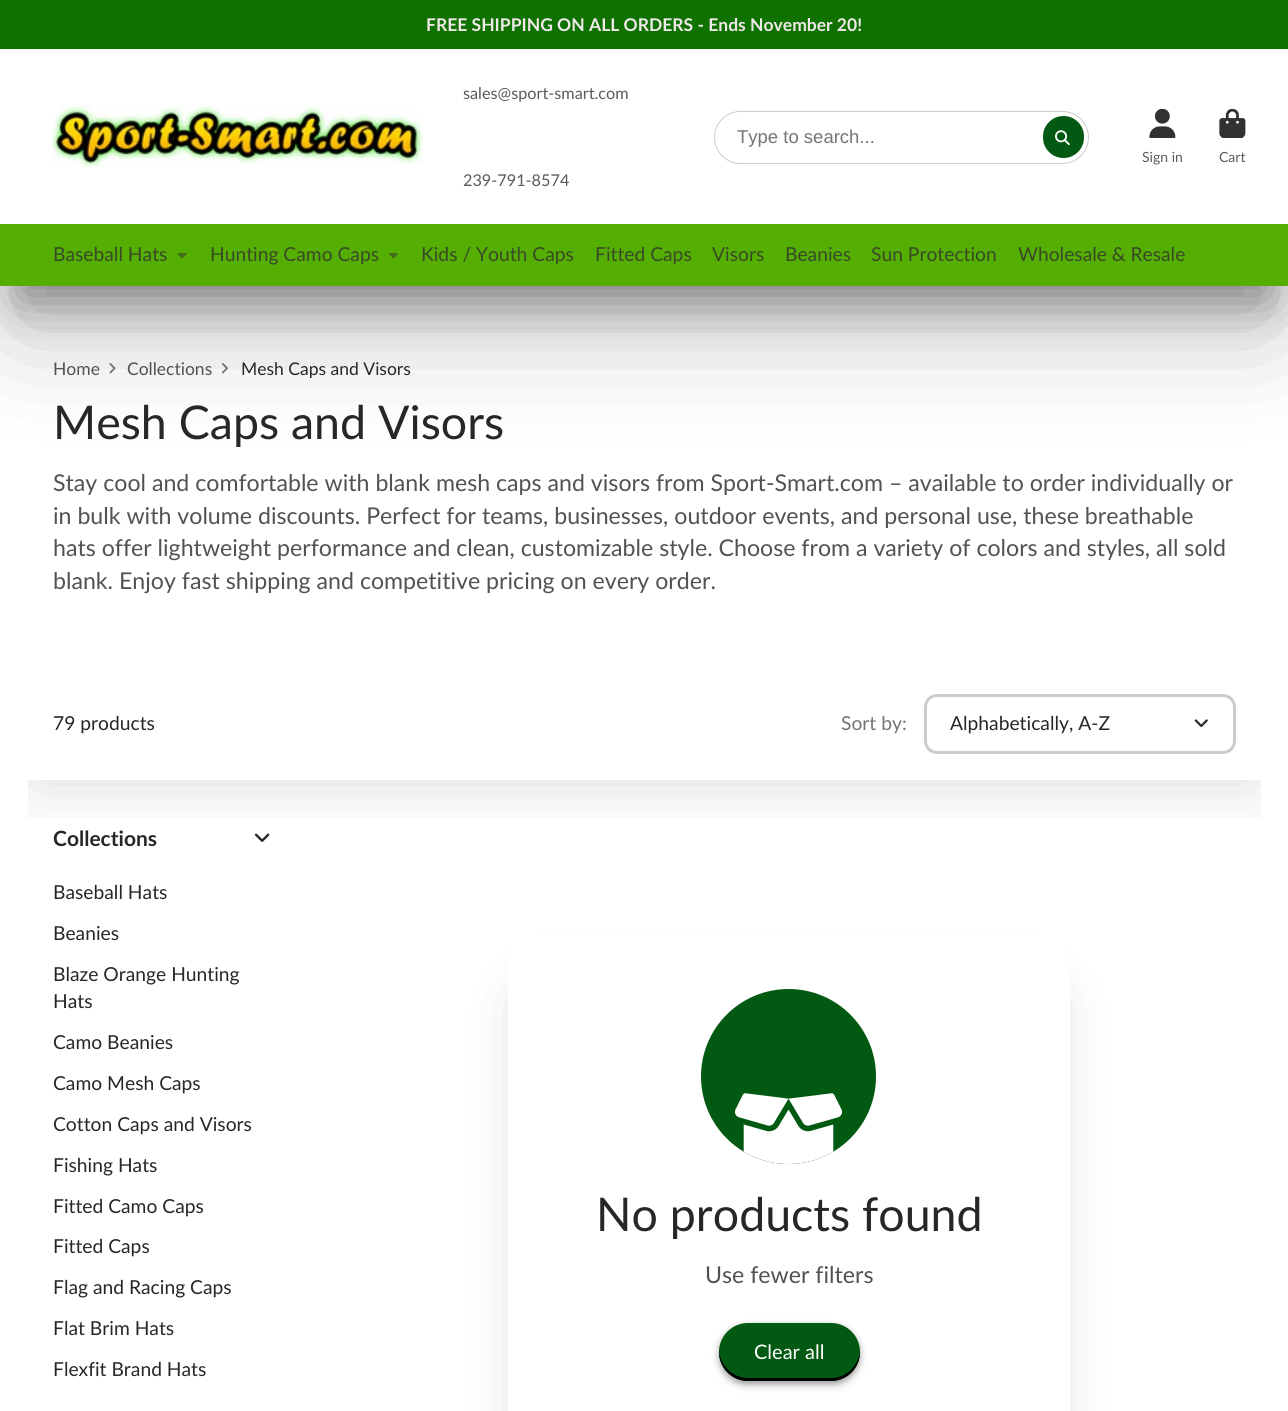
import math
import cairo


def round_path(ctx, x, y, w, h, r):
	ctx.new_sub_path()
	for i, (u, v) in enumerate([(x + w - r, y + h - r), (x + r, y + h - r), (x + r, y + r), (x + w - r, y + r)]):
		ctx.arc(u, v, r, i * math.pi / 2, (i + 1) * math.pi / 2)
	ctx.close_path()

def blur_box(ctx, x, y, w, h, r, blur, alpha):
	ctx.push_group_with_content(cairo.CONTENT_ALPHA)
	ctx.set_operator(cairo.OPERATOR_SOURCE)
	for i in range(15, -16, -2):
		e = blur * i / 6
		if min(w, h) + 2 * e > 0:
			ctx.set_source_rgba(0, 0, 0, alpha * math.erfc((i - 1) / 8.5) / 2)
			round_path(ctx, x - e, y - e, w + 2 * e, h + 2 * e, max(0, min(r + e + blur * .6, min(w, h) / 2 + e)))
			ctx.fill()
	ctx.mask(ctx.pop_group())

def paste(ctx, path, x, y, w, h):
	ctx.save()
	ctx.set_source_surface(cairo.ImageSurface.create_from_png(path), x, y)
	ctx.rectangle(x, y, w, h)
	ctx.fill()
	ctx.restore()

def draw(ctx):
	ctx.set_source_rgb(1, 1, 1)
	ctx.paint()
	ctx.set_source_rgb(0.059, 0.447, 0)
	ctx.rectangle(0, 0, 1288, 49)
	ctx.fill()
	ctx.select_font_face('Lato', cairo.FONT_SLANT_NORMAL, cairo.FONT_WEIGHT_BOLD)
	ctx.set_font_size(17.5)
	ctx.set_source_rgb(0.953, 0.922, 0.922)
	ctx.move_to(426, 31)
	ctx.show_text('FREE SHIPPING ON ALL ORDERS - Ends November 20!')
	paste(ctx, 'media/7.png', 109, 363, 7, 11)
	paste(ctx, 'media/8.png', 221, 363, 7, 11)
	ctx.save()
	ctx.rectangle(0, 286, 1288, 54)
	ctx.clip()
	ctx.set_source_rgb(0.106, 0.102, 0.102)
	blur_box(ctx, 18, 99, 1253, 202, 0, 24, 0.4)
	ctx.restore()
	ctx.save()
	ctx.set_fill_rule(cairo.FILL_RULE_EVEN_ODD)
	ctx.new_path()
	ctx.move_to(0, 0)
	ctx.line_to(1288, 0)
	ctx.line_to(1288, 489)
	ctx.line_to(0, 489)
	ctx.close_path()
	ctx.move_to(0, 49)
	ctx.line_to(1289, 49)
	ctx.line_to(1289, 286)
	ctx.line_to(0, 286)
	ctx.close_path()
	ctx.clip()
	ctx.set_source_rgb(0.106, 0.102, 0.102)
	blur_box(ctx, 18, 121, 1253, 203, 0, 54.5, 0.3)
	ctx.restore()
	paste(ctx, 'media/1.png', 52, 104, 371, 64)
	ctx.select_font_face('Lato')
	ctx.set_font_size(16.25)
	ctx.set_source_rgb(0.357, 0.349, 0.349)
	ctx.move_to(463, 99)
	ctx.show_text('sales@sport-smart.com')
	ctx.move_to(463, 186)
	ctx.show_text('239-791-8574')
	round_path(ctx, 714.5, 111.5, 374, 52, 26)
	ctx.set_source_rgb(0.8, 0.8, 0.8)
	ctx.set_line_width(1)
	ctx.stroke()
	ctx.new_path()
	ctx.move_to(717, 131)
	ctx.curve_to(720, 128, 725, 128, 728, 131)
	ctx.set_source_rgb(1, 1, 1)
	ctx.set_line_width(2.5)
	ctx.stroke()
	ctx.select_font_face('Liberation Sans')
	ctx.set_font_size(18.5)
	ctx.set_source_rgb(0.459, 0.459, 0.459)
	ctx.move_to(737, 143)
	ctx.show_text('Type to search...')
	ctx.set_source_rgb(0.008, 0.349, 0.067)
	round_path(ctx, 1043, 116, 41, 42, 20.5)
	ctx.fill()
	paste(ctx, 'media/2.png', 1055, 130, 15, 15)
	paste(ctx, 'media/3.png', 1149, 109, 27, 29)
	ctx.select_font_face('Lato')
	ctx.set_font_size(14)
	ctx.set_source_rgb(0.357, 0.349, 0.349)
	ctx.move_to(1142, 162)
	ctx.show_text('Sign in')
	paste(ctx, 'media/4.png', 1219, 109, 27, 29)
	ctx.move_to(1219, 162)
	ctx.show_text('Cart')
	ctx.set_source_rgb(0.329, 0.686, 0.008)
	ctx.rectangle(0, 224, 1288, 62)
	ctx.fill()
	ctx.set_font_size(19.25)
	ctx.set_source_rgb(0.224, 0.286, 0.153)
	ctx.move_to(53, 261)
	ctx.show_text('Baseball Hats')
	paste(ctx, 'media/5.png', 177, 252, 10, 7)
	ctx.move_to(210, 261)
	ctx.show_text('Hunting Camo Caps')
	paste(ctx, 'media/6.png', 389, 252, 9, 7)
	for x, y, s in [
		(421, 261, 'Kids / Youth Caps'),
		(595, 261, 'Fitted Caps'),
		(712, 261, 'Visors'),
		(785, 261, 'Beanies'),
		(871, 261, 'Sun Protection'),
		(1018, 261, 'Wholesale & Resale'),
	]:
		ctx.move_to(x, y)
		ctx.show_text(s)
	ctx.set_font_size(17.5)
	ctx.set_source_rgb(0.325, 0.322, 0.322)
	ctx.move_to(53, 375)
	ctx.show_text('Home')
	ctx.move_to(127, 375)
	ctx.show_text('Collections')
	ctx.set_source_rgb(0.157, 0.153, 0.153)
	ctx.move_to(241, 375)
	ctx.show_text('Mesh Caps and Visors')
	ctx.set_font_size(46.5)
	ctx.move_to(53, 439)
	ctx.show_text('Mesh Caps and Visors')
	ctx.set_font_size(23.15)
	ctx.set_source_rgb(0.325, 0.322, 0.322)
	for x, y, s in [
		(53, 491, 'Stay cool and comfortable with blank mesh caps and visors from Sport-Smart.com – available to order individually or'),
		(53, 524, 'in bulk with volume discounts. Perfect for teams, businesses, outdoor events, and personal use, these breathable'),
		(53, 556, 'hats offer lightweight performance and clean, customizable style. Choose from a variety of colors and styles, all sold'),
		(53, 589, 'blank. Enjoy fast shipping and competitive pricing on every order.'),
	]:
		ctx.move_to(x, y)
		ctx.show_text(s)
	ctx.save()
	ctx.rectangle(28, 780, 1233, 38)
	ctx.clip()
	ctx.set_source_rgb(0, 0, 0)
	blur_box(ctx, 38, 743, 1213, 37, 0, 37.5, 0.15)
	ctx.restore()
	ctx.set_font_size(19.25)
	ctx.set_source_rgb(0.157, 0.153, 0.153)
	ctx.move_to(53, 730)
	ctx.show_text('79 products')
	ctx.set_source_rgb(0.459, 0.459, 0.459)
	ctx.move_to(841, 730)
	ctx.show_text('Sort by:')
	round_path(ctx, 925.5, 695.5, 309, 57, 11.5)
	ctx.set_source_rgb(0.8, 0.8, 0.8)
	ctx.set_line_width(3)
	ctx.stroke()
	ctx.set_source_rgb(0.157, 0.153, 0.153)
	ctx.move_to(950, 730)
	ctx.show_text('Alphabetically, A-Z')
	paste(ctx, 'media/9.png', 1194, 719, 14, 8)
	ctx.select_font_face('Lato', cairo.FONT_SLANT_NORMAL, cairo.FONT_WEIGHT_BOLD)
	ctx.set_font_size(21)
	ctx.move_to(53, 846)
	ctx.show_text('Collections')
	paste(ctx, 'media/10.png', 254, 833, 16, 9)
	ctx.select_font_face('Lato')
	ctx.set_font_size(19.25)
	for x, y, s in [
		(53, 899, 'Baseball Hats'),
		(53, 940, 'Beanies'),
		(53, 981, 'Blaze Orange Hunting'),
		(53, 1008, 'Hats'),
		(53, 1049, 'Camo Beanies'),
		(53, 1090, 'Camo Mesh Caps'),
		(53, 1131, 'Cotton Caps and Visors'),
		(53, 1172, 'Fishing Hats'),
		(53, 1213, 'Fitted Camo Caps'),
		(53, 1253, 'Fitted Caps'),
		(53, 1294, 'Flag and Racing Caps'),
		(53, 1335, 'Flat Brim Hats'),
		(53, 1376, 'Flexfit Brand Hats'),
	]:
		ctx.move_to(x, y)
		ctx.show_text(s)
	ctx.save()
	ctx.set_fill_rule(cairo.FILL_RULE_EVEN_ODD)
	ctx.new_path()
	ctx.move_to(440, 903)
	ctx.line_to(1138, 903)
	ctx.line_to(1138, 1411)
	ctx.line_to(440, 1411)
	ctx.close_path()
	ctx.move_to(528, 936)
	ctx.line_to(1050, 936)
	ctx.curve_to(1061, 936, 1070, 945, 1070, 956)
	ctx.line_to(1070, 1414)
	ctx.curve_to(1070, 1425, 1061, 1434, 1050, 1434)
	ctx.line_to(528, 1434)
	ctx.curve_to(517, 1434, 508, 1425, 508, 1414)
	ctx.line_to(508, 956)
	ctx.curve_to(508, 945, 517, 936, 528, 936)
	ctx.close_path()
	ctx.clip()
	ctx.set_source_rgb(0.106, 0.102, 0.102)
	blur_box(ctx, 540, 1003, 498, 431, 0, 33, 0.3)
	ctx.restore()
	ctx.set_source_rgb(0.008, 0.349, 0.067)
	ctx.arc(788.5, 1076.5, 87.5, 0, 2 * math.pi)
	ctx.fill()
	paste(ctx, 'media/11.png', 734, 1093, 109, 71)
	ctx.set_font_size(46.5)
	ctx.set_source_rgb(0.157, 0.153, 0.153)
	ctx.move_to(596, 1231)
	ctx.show_text('No products found')
	ctx.set_font_size(23.15)
	ctx.set_source_rgb(0.325, 0.322, 0.322)
	ctx.move_to(705, 1283)
	ctx.show_text('Use fewer filters')
	ctx.set_source_rgb(0, 0, 0)
	blur_box(ctx, 721, 1331, 137, 53, 26.5, 6, 0.15)
	blur_box(ctx, 719, 1325, 141, 59, 29.5, 3, 0.3)
	ctx.set_source_rgb(0.008, 0.349, 0.067)
	round_path(ctx, 719, 1323, 141, 58, 29)
	ctx.fill()
	ctx.set_source_rgb(0, 0, 0)
	ctx.new_path()
	ctx.move_to(719, 1350)
	ctx.line_to(719, 1352)
	ctx.curve_to(719, 1368, 732, 1381, 748, 1381)
	ctx.line_to(831, 1381)
	ctx.curve_to(847, 1381, 860, 1368, 860, 1352)
	ctx.line_to(860, 1350)
	ctx.curve_to(859, 1366, 846, 1378, 831, 1378)
	ctx.line_to(748, 1378)
	ctx.curve_to(733, 1378, 720, 1366, 719, 1350)
	ctx.close_path()
	ctx.fill()
	ctx.set_font_size(20)
	ctx.set_source_rgb(1, 1, 1)
	ctx.move_to(754, 1359)
	ctx.show_text('Clear all')


surface = cairo.ImageSurface(cairo.FORMAT_RGB24, 1288, 1411)
ctx = cairo.Context(surface)
options = cairo.FontOptions()
options.set_hint_metrics(cairo.HINT_METRICS_OFF)
options.set_hint_style(cairo.HINT_STYLE_NONE)
ctx.set_font_options(options)
ctx.set_miter_limit(4)
draw(ctx)
surface.write_to_png('image.png')
